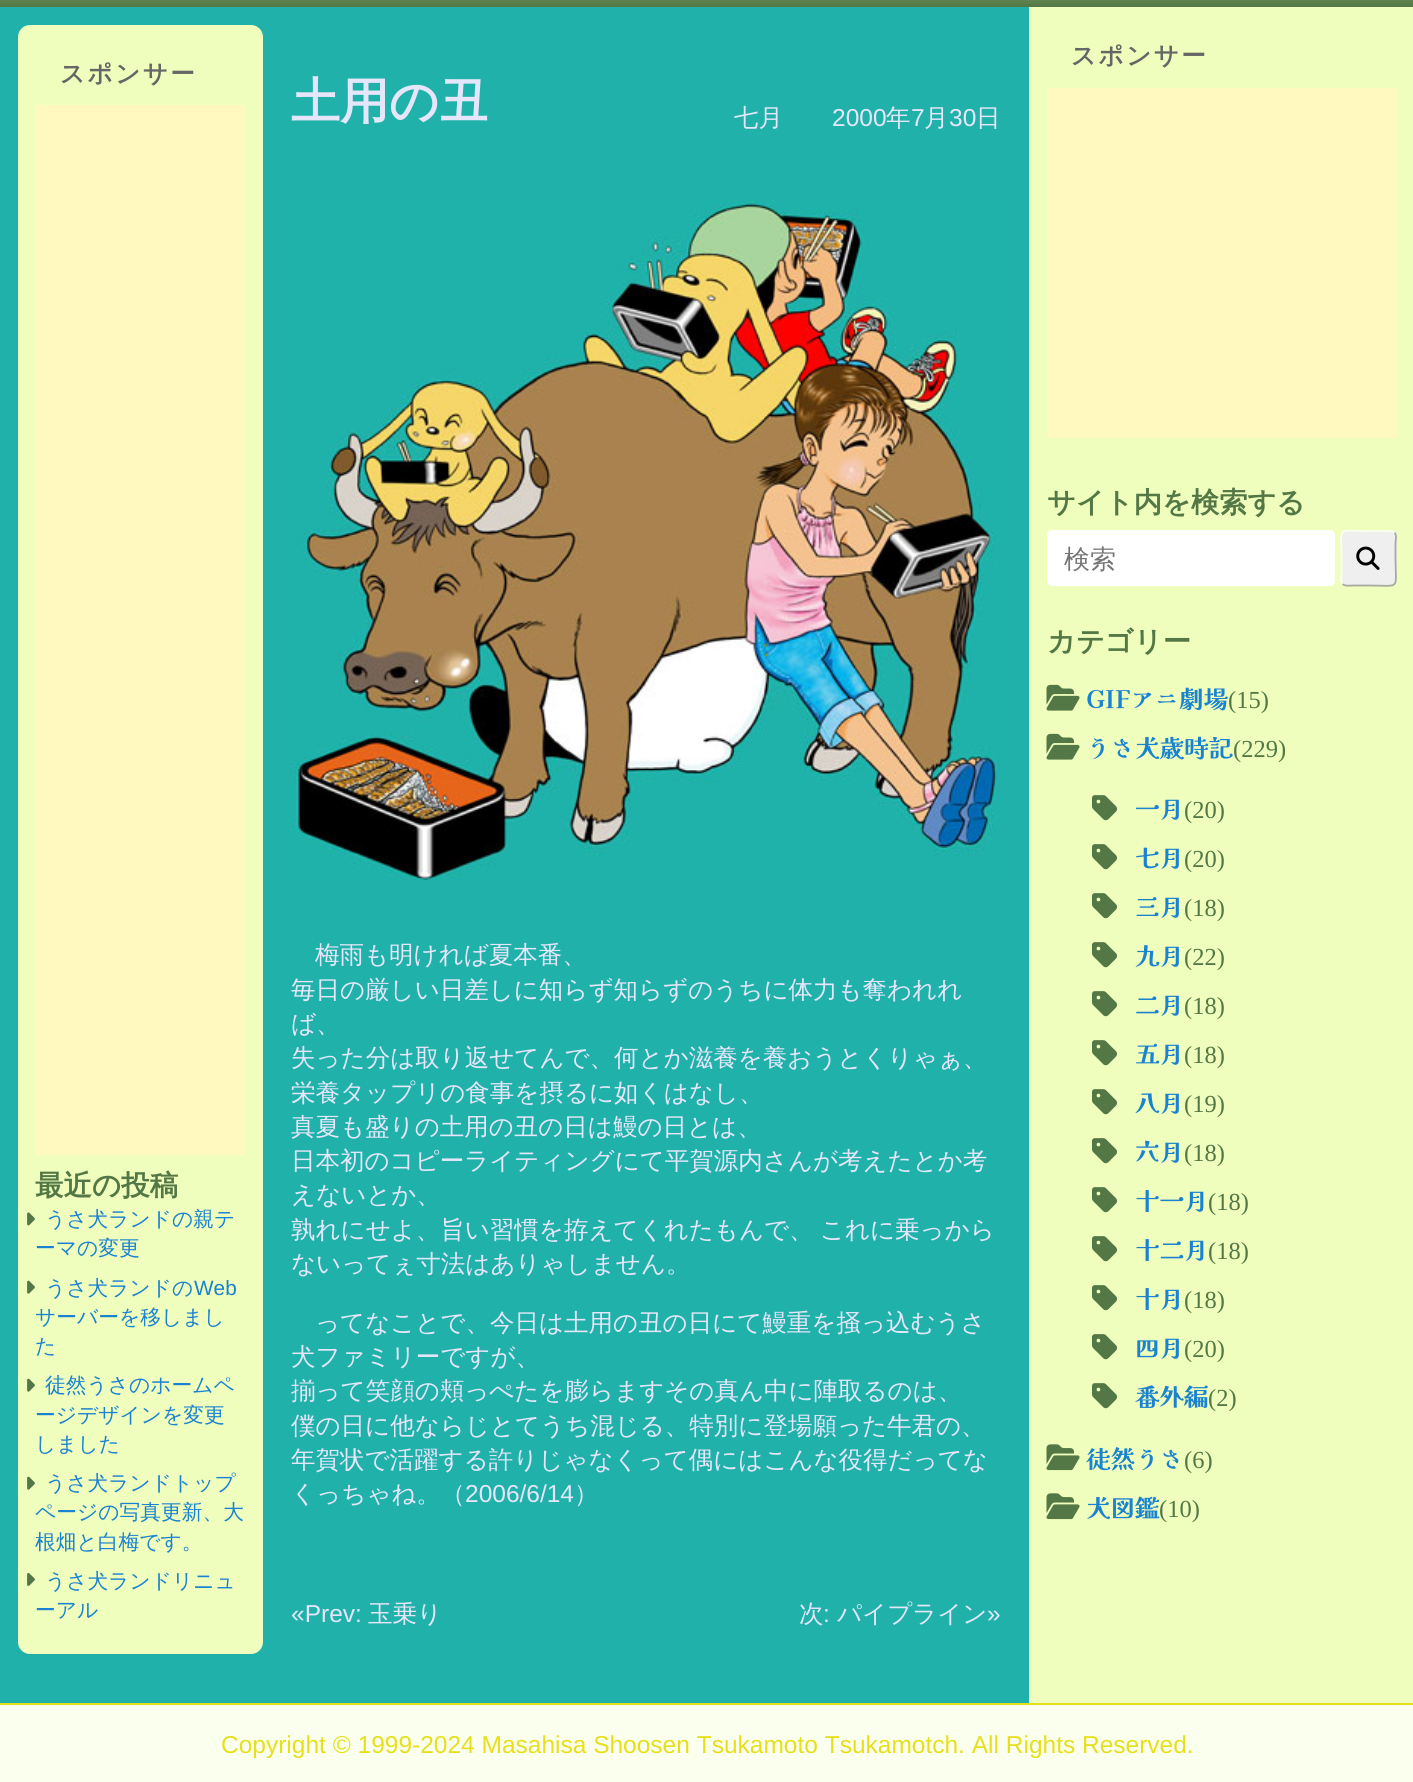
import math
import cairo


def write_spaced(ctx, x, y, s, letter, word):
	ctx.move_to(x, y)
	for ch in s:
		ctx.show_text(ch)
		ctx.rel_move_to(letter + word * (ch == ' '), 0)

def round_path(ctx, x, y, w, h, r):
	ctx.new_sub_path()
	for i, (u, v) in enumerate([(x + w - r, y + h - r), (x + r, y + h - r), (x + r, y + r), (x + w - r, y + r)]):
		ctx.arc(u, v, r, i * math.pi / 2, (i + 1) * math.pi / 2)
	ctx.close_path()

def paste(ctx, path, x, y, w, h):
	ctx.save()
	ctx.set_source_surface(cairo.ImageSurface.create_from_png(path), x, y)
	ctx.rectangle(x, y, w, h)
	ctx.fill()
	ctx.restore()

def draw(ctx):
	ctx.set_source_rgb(0.984, 1, 0.933)
	ctx.paint()
	gradient = cairo.LinearGradient(707, -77, 707, 7)
	gradient.add_color_stop_rgba(0, 0.937, 0.996, 0.737, 1)
	gradient.add_color_stop_rgba(1, 0.325, 0.471, 0.271, 1)
	ctx.set_source(gradient)
	ctx.rectangle(0, 0, 1413, 7)
	ctx.fill()
	ctx.set_source_rgb(0.125, 0.698, 0.667)
	ctx.rectangle(0, 7, 1029, 1696)
	ctx.fill()
	ctx.set_source_rgb(0.937, 0.996, 0.737)
	round_path(ctx, 18, 25, 245, 1629, 12)
	ctx.fill()
	ctx.select_font_face('WenQuanYi Zen Hei', cairo.FONT_SLANT_NORMAL, cairo.FONT_WEIGHT_BOLD)
	ctx.set_font_size(24.5)
	ctx.set_source_rgb(0.4, 0.4, 0.4)
	write_spaced(ctx, 60, 82, 'スポンサー', 2.5, 0)
	ctx.set_source_rgb(1, 0.976, 0.753)
	ctx.rectangle(35, 105, 210, 1050)
	ctx.fill()
	ctx.set_font_size(28.5)
	ctx.set_source_rgb(0.325, 0.471, 0.271)
	ctx.move_to(35, 1195)
	ctx.show_text('最近の投稿')
	paste(ctx, 'media/1.png', 27, 1212, 8, 14)
	ctx.select_font_face('WenQuanYi Zen Hei Medium')
	ctx.set_font_size(20.75)
	ctx.set_source_rgb(0.098, 0.51, 0.82)
	ctx.move_to(45, 1226)
	ctx.show_text('うさ犬ランドの親テ')
	ctx.move_to(35, 1255)
	ctx.show_text('ーマの変更')
	paste(ctx, 'media/2.png', 27, 1280, 8, 14)
	ctx.move_to(45, 1295)
	ctx.show_text('うさ犬ランドの')
	ctx.select_font_face('Liberation Sans')
	ctx.move_to(194, 1295)
	ctx.show_text('Web')
	ctx.select_font_face('WenQuanYi Zen Hei Medium')
	ctx.move_to(35, 1324)
	ctx.show_text('サーバーを移しまし')
	ctx.move_to(35, 1353)
	ctx.show_text('た')
	paste(ctx, 'media/2.png', 27, 1378, 8, 14)
	for x, y, s in [
		(45, 1392, '徒然うさのホームペ'),
		(35, 1422, 'ージデザインを変更'),
		(35, 1451, 'しました'),
	]:
		ctx.move_to(x, y)
		ctx.show_text(s)
	paste(ctx, 'media/2.png', 27, 1476, 8, 14)
	for x, y, s in [
		(45, 1490, 'うさ犬ランドトップ'),
		(35, 1519, 'ページの写真更新、大'),
		(35, 1549, '根畑と白梅です。'),
	]:
		ctx.move_to(x, y)
		ctx.show_text(s)
	paste(ctx, 'media/3.png', 27, 1573, 8, 13)
	ctx.move_to(45, 1588)
	ctx.show_text('うさ犬ランドリニュ')
	ctx.move_to(35, 1617)
	ctx.show_text('ーアル')
	ctx.select_font_face('WenQuanYi Zen Hei', cairo.FONT_SLANT_NORMAL, cairo.FONT_WEIGHT_BOLD)
	ctx.set_font_size(49)
	ctx.set_source_rgb(0.902, 0.902, 0.98)
	ctx.move_to(291, 118)
	ctx.show_text('土用の丑')
	ctx.select_font_face('WenQuanYi Zen Hei Medium')
	ctx.set_font_size(24.5)
	ctx.move_to(734, 126)
	ctx.show_text('七月')
	ctx.select_font_face('Liberation Sans')
	ctx.move_to(832, 126)
	ctx.show_text('2000')
	ctx.select_font_face('WenQuanYi Zen Hei Medium')
	ctx.move_to(886, 126)
	ctx.show_text('年')
	ctx.select_font_face('Liberation Sans')
	ctx.move_to(911, 126)
	ctx.show_text('7')
	ctx.select_font_face('WenQuanYi Zen Hei Medium')
	ctx.move_to(924, 126)
	ctx.show_text('月')
	ctx.select_font_face('Liberation Sans')
	ctx.move_to(949, 126)
	ctx.show_text('30')
	ctx.select_font_face('WenQuanYi Zen Hei Medium')
	ctx.move_to(976, 126)
	ctx.show_text('日')
	paste(ctx, 'media/4.png', 290, 199, 707, 681)
	for x, y, s in [
		(315, 963, '梅雨も明ければ夏本番、'),
		(291, 998, '毎日の厳しい日差しに知らず知らずのうちに体力も奪われれ'),
		(291, 1032, 'ば、'),
		(291, 1066, '失った分は取り返せてんで、何とか滋養を養おうとくりゃぁ、'),
		(291, 1101, '栄養タップリの食事を摂るに如くはなし、'),
		(291, 1135, '真夏も盛りの土用の丑の日は鰻の日とは、'),
		(291, 1169, '日本初のコピーライティングにて平賀源内さんが考えたとか考'),
		(291, 1203, 'えないとか、'),
	]:
		ctx.move_to(x, y)
		ctx.show_text(s)
	write_spaced(ctx, 291, 1238, '孰れにせよ、旨い習慣を拵えてくれたもんで、 これに乗っから', 0, -1)
	for x, y, s in [
		(291, 1272, 'ないってぇ寸法はありゃしません。'),
		(315, 1331, 'ってなことで、今日は土用の丑の日にて鰻重を掻っ込むうさ'),
		(291, 1365, '犬ファミリーですが、'),
		(291, 1399, '揃って笑顔の頬っぺたを膨らますその真ん中に陣取るのは、'),
		(291, 1434, '僕の日に他ならじとてうち混じる、特別に登場願った牛君の、'),
		(291, 1468, '年賀状で活躍する許りじゃなくって偶にはこんな役得だってな'),
		(291, 1502, 'くっちゃね。（'),
	]:
		ctx.move_to(x, y)
		ctx.show_text(s)
	ctx.select_font_face('Liberation Sans')
	ctx.move_to(465, 1502)
	ctx.show_text('2006/6/14')
	ctx.select_font_face('WenQuanYi Zen Hei Medium')
	ctx.move_to(574, 1502)
	ctx.show_text('）')
	ctx.select_font_face('Liberation Sans')
	ctx.move_to(291, 1622)
	ctx.show_text('«Prev:')
	ctx.select_font_face('WenQuanYi Zen Hei Medium')
	ctx.move_to(368, 1622)
	ctx.show_text('玉乗り')
	ctx.move_to(799, 1622)
	ctx.show_text('次')
	ctx.select_font_face('Liberation Sans')
	ctx.move_to(823, 1622)
	ctx.show_text(':')
	ctx.select_font_face('WenQuanYi Zen Hei Medium')
	ctx.move_to(837, 1622)
	ctx.show_text('パイプライン')
	ctx.select_font_face('Liberation Sans')
	ctx.move_to(987, 1622)
	ctx.show_text('»')
	ctx.set_source_rgb(0.937, 0.996, 0.737)
	ctx.rectangle(1029, 7, 384, 1696)
	ctx.fill()
	ctx.select_font_face('WenQuanYi Zen Hei', cairo.FONT_SLANT_NORMAL, cairo.FONT_WEIGHT_BOLD)
	ctx.set_source_rgb(0.4, 0.4, 0.4)
	write_spaced(ctx, 1071, 64, 'スポンサー', 2.5, 0)
	ctx.set_source_rgb(1, 0.976, 0.753)
	ctx.rectangle(1047, 88, 350, 350)
	ctx.fill()
	ctx.set_font_size(28.25)
	ctx.set_source_rgb(0.325, 0.471, 0.271)
	ctx.move_to(1047, 512)
	ctx.show_text('サイト内を検索する')
	ctx.set_source_rgb(1, 1, 1)
	round_path(ctx, 1047, 530, 288, 56, 5)
	ctx.fill()
	ctx.select_font_face('WenQuanYi Zen Hei Medium')
	ctx.set_font_size(26)
	ctx.set_source_rgb(0.459, 0.459, 0.459)
	ctx.move_to(1064, 568)
	ctx.show_text('検索')
	ctx.set_source_rgb(0.937, 0.937, 0.937)
	round_path(ctx, 1341, 530, 56, 56, 5)
	ctx.fill()
	ctx.new_path()
	ctx.move_to(1394.5, 532.5)
	ctx.curve_to(1397, 535, 1395.5, 541, 1395.5, 543)
	ctx.line_to(1395.5, 558)
	ctx.curve_to(1395.5, 591, 1401.5, 585.5, 1368.5, 585.5)
	ctx.line_to(1353.5, 585.5)
	ctx.curve_to(1351, 585.5, 1345, 586.5, 1342.5, 584)
	ctx.set_source_rgb(0.655, 0.667, 0.624)
	ctx.set_line_width(1.8)
	ctx.stroke()
	ctx.new_path()
	ctx.move_to(1342.5, 584)
	ctx.curve_to(1340, 581.5, 1341.5, 575.5, 1341.5, 573.5)
	ctx.line_to(1341.5, 558)
	ctx.curve_to(1341.5, 525.5, 1335.5, 531, 1368.5, 531)
	ctx.line_to(1383.5, 531)
	ctx.curve_to(1386, 531, 1392, 530, 1394.5, 532.5)
	ctx.set_source_rgb(0.984, 1, 0.933)
	ctx.stroke()
	paste(ctx, 'media/5.png', 1356, 546, 24, 24)
	ctx.select_font_face('WenQuanYi Zen Hei', cairo.FONT_SLANT_NORMAL, cairo.FONT_WEIGHT_BOLD)
	ctx.set_font_size(28.25)
	ctx.set_source_rgb(0.325, 0.471, 0.271)
	ctx.move_to(1047, 651)
	ctx.show_text('カテゴリー')
	paste(ctx, 'media/6.png', 1046, 684, 34, 27)
	ctx.select_font_face('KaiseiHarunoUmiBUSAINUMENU', cairo.FONT_SLANT_NORMAL, cairo.FONT_WEIGHT_BOLD)
	ctx.set_font_size(24.5)
	ctx.set_source_rgb(0.098, 0.51, 0.82)
	ctx.move_to(1086, 708)
	ctx.show_text('GIFアニ劇場')
	ctx.select_font_face('Liberation Serif')
	ctx.set_source_rgb(0.325, 0.471, 0.271)
	ctx.move_to(1228, 708)
	ctx.show_text('(15)')
	paste(ctx, 'media/6.png', 1046, 733, 34, 27)
	ctx.select_font_face('KaiseiHarunoUmiBUSAINUMENU', cairo.FONT_SLANT_NORMAL, cairo.FONT_WEIGHT_BOLD)
	ctx.set_source_rgb(0.098, 0.51, 0.82)
	ctx.move_to(1086, 757)
	ctx.show_text('うさ犬歳時記')
	ctx.select_font_face('Liberation Serif')
	ctx.set_source_rgb(0.325, 0.471, 0.271)
	ctx.move_to(1233, 757)
	ctx.show_text('(229)')
	paste(ctx, 'media/7.png', 1092, 795, 26, 26)
	ctx.select_font_face('KaiseiHarunoUmiBUSAINUMENU', cairo.FONT_SLANT_NORMAL, cairo.FONT_WEIGHT_BOLD)
	ctx.set_source_rgb(0.098, 0.51, 0.82)
	ctx.move_to(1135, 818)
	ctx.show_text('一月')
	ctx.select_font_face('Liberation Serif')
	ctx.set_source_rgb(0.325, 0.471, 0.271)
	ctx.move_to(1184, 818)
	ctx.show_text('(20)')
	paste(ctx, 'media/7.png', 1092, 844, 26, 26)
	ctx.select_font_face('KaiseiHarunoUmiBUSAINUMENU', cairo.FONT_SLANT_NORMAL, cairo.FONT_WEIGHT_BOLD)
	ctx.set_source_rgb(0.098, 0.51, 0.82)
	ctx.move_to(1135, 867)
	ctx.show_text('七月')
	ctx.select_font_face('Liberation Serif')
	ctx.set_source_rgb(0.325, 0.471, 0.271)
	ctx.move_to(1184, 867)
	ctx.show_text('(20)')
	paste(ctx, 'media/7.png', 1092, 893, 26, 26)
	ctx.select_font_face('KaiseiHarunoUmiBUSAINUMENU', cairo.FONT_SLANT_NORMAL, cairo.FONT_WEIGHT_BOLD)
	ctx.set_source_rgb(0.098, 0.51, 0.82)
	ctx.move_to(1135, 916)
	ctx.show_text('三月')
	ctx.select_font_face('Liberation Serif')
	ctx.set_source_rgb(0.325, 0.471, 0.271)
	ctx.move_to(1184, 916)
	ctx.show_text('(18)')
	paste(ctx, 'media/7.png', 1092, 942, 26, 26)
	ctx.select_font_face('KaiseiHarunoUmiBUSAINUMENU', cairo.FONT_SLANT_NORMAL, cairo.FONT_WEIGHT_BOLD)
	ctx.set_source_rgb(0.098, 0.51, 0.82)
	ctx.move_to(1135, 965)
	ctx.show_text('九月')
	ctx.select_font_face('Liberation Serif')
	ctx.set_source_rgb(0.325, 0.471, 0.271)
	ctx.move_to(1184, 965)
	ctx.show_text('(22)')
	paste(ctx, 'media/7.png', 1092, 991, 26, 26)
	ctx.select_font_face('KaiseiHarunoUmiBUSAINUMENU', cairo.FONT_SLANT_NORMAL, cairo.FONT_WEIGHT_BOLD)
	ctx.set_source_rgb(0.098, 0.51, 0.82)
	ctx.move_to(1135, 1014)
	ctx.show_text('二月')
	ctx.select_font_face('Liberation Serif')
	ctx.set_source_rgb(0.325, 0.471, 0.271)
	ctx.move_to(1184, 1014)
	ctx.show_text('(18)')
	paste(ctx, 'media/7.png', 1092, 1040, 26, 26)
	ctx.select_font_face('KaiseiHarunoUmiBUSAINUMENU', cairo.FONT_SLANT_NORMAL, cairo.FONT_WEIGHT_BOLD)
	ctx.set_source_rgb(0.098, 0.51, 0.82)
	ctx.move_to(1135, 1063)
	ctx.show_text('五月')
	ctx.select_font_face('Liberation Serif')
	ctx.set_source_rgb(0.325, 0.471, 0.271)
	ctx.move_to(1184, 1063)
	ctx.show_text('(18)')
	paste(ctx, 'media/7.png', 1092, 1089, 26, 26)
	ctx.select_font_face('KaiseiHarunoUmiBUSAINUMENU', cairo.FONT_SLANT_NORMAL, cairo.FONT_WEIGHT_BOLD)
	ctx.set_source_rgb(0.098, 0.51, 0.82)
	ctx.move_to(1135, 1112)
	ctx.show_text('八月')
	ctx.select_font_face('Liberation Serif')
	ctx.set_source_rgb(0.325, 0.471, 0.271)
	ctx.move_to(1184, 1112)
	ctx.show_text('(19)')
	paste(ctx, 'media/7.png', 1092, 1138, 26, 26)
	ctx.select_font_face('KaiseiHarunoUmiBUSAINUMENU', cairo.FONT_SLANT_NORMAL, cairo.FONT_WEIGHT_BOLD)
	ctx.set_source_rgb(0.098, 0.51, 0.82)
	ctx.move_to(1135, 1161)
	ctx.show_text('六月')
	ctx.select_font_face('Liberation Serif')
	ctx.set_source_rgb(0.325, 0.471, 0.271)
	ctx.move_to(1184, 1161)
	ctx.show_text('(18)')
	paste(ctx, 'media/7.png', 1092, 1187, 26, 26)
	ctx.select_font_face('KaiseiHarunoUmiBUSAINUMENU', cairo.FONT_SLANT_NORMAL, cairo.FONT_WEIGHT_BOLD)
	ctx.set_source_rgb(0.098, 0.51, 0.82)
	ctx.move_to(1135, 1210)
	ctx.show_text('十一月')
	ctx.select_font_face('Liberation Serif')
	ctx.set_source_rgb(0.325, 0.471, 0.271)
	ctx.move_to(1208, 1210)
	ctx.show_text('(18)')
	paste(ctx, 'media/7.png', 1092, 1236, 26, 26)
	ctx.select_font_face('KaiseiHarunoUmiBUSAINUMENU', cairo.FONT_SLANT_NORMAL, cairo.FONT_WEIGHT_BOLD)
	ctx.set_source_rgb(0.098, 0.51, 0.82)
	ctx.move_to(1135, 1259)
	ctx.show_text('十二月')
	ctx.select_font_face('Liberation Serif')
	ctx.set_source_rgb(0.325, 0.471, 0.271)
	ctx.move_to(1208, 1259)
	ctx.show_text('(18)')
	paste(ctx, 'media/7.png', 1092, 1285, 26, 26)
	ctx.select_font_face('KaiseiHarunoUmiBUSAINUMENU', cairo.FONT_SLANT_NORMAL, cairo.FONT_WEIGHT_BOLD)
	ctx.set_source_rgb(0.098, 0.51, 0.82)
	ctx.move_to(1135, 1308)
	ctx.show_text('十月')
	ctx.select_font_face('Liberation Serif')
	ctx.set_source_rgb(0.325, 0.471, 0.271)
	ctx.move_to(1184, 1308)
	ctx.show_text('(18)')
	paste(ctx, 'media/7.png', 1092, 1334, 26, 26)
	ctx.select_font_face('KaiseiHarunoUmiBUSAINUMENU', cairo.FONT_SLANT_NORMAL, cairo.FONT_WEIGHT_BOLD)
	ctx.set_source_rgb(0.098, 0.51, 0.82)
	ctx.move_to(1135, 1357)
	ctx.show_text('四月')
	ctx.select_font_face('Liberation Serif')
	ctx.set_source_rgb(0.325, 0.471, 0.271)
	ctx.move_to(1184, 1357)
	ctx.show_text('(20)')
	paste(ctx, 'media/7.png', 1092, 1383, 26, 26)
	ctx.select_font_face('KaiseiHarunoUmiBUSAINUMENU', cairo.FONT_SLANT_NORMAL, cairo.FONT_WEIGHT_BOLD)
	ctx.set_source_rgb(0.098, 0.51, 0.82)
	ctx.move_to(1135, 1406)
	ctx.show_text('番外編')
	ctx.select_font_face('Liberation Serif')
	ctx.set_source_rgb(0.325, 0.471, 0.271)
	ctx.move_to(1208, 1406)
	ctx.show_text('(2)')
	paste(ctx, 'media/8.png', 1046, 1444, 34, 27)
	ctx.select_font_face('KaiseiHarunoUmiBUSAINUMENU', cairo.FONT_SLANT_NORMAL, cairo.FONT_WEIGHT_BOLD)
	ctx.set_source_rgb(0.098, 0.51, 0.82)
	ctx.move_to(1086, 1468)
	ctx.show_text('徒然うさ')
	ctx.select_font_face('Liberation Serif')
	ctx.set_source_rgb(0.325, 0.471, 0.271)
	ctx.move_to(1184, 1468)
	ctx.show_text('(6)')
	paste(ctx, 'media/8.png', 1046, 1493, 34, 27)
	ctx.select_font_face('KaiseiHarunoUmiBUSAINUMENU', cairo.FONT_SLANT_NORMAL, cairo.FONT_WEIGHT_BOLD)
	ctx.set_source_rgb(0.098, 0.51, 0.82)
	ctx.move_to(1086, 1517)
	ctx.show_text('犬図鑑')
	ctx.select_font_face('Liberation Serif')
	ctx.set_source_rgb(0.325, 0.471, 0.271)
	ctx.move_to(1159, 1517)
	ctx.show_text('(10)')
	ctx.set_source_rgb(0.902, 0.878, 0.11)
	ctx.rectangle(0, 1703, 1413, 2)
	ctx.fill()
	ctx.select_font_face('Liberation Sans')
	ctx.move_to(221, 1753)
	ctx.show_text('Copyright © 1999-2024 Masahisa Shoosen Tsukamoto Tsukamotch. All Rights Reserved.')


surface = cairo.ImageSurface(cairo.FORMAT_RGB24, 1413, 1782)
ctx = cairo.Context(surface)
options = cairo.FontOptions()
options.set_hint_metrics(cairo.HINT_METRICS_OFF)
options.set_hint_style(cairo.HINT_STYLE_NONE)
ctx.set_font_options(options)
ctx.set_miter_limit(4)
draw(ctx)
surface.write_to_png('image.png')
